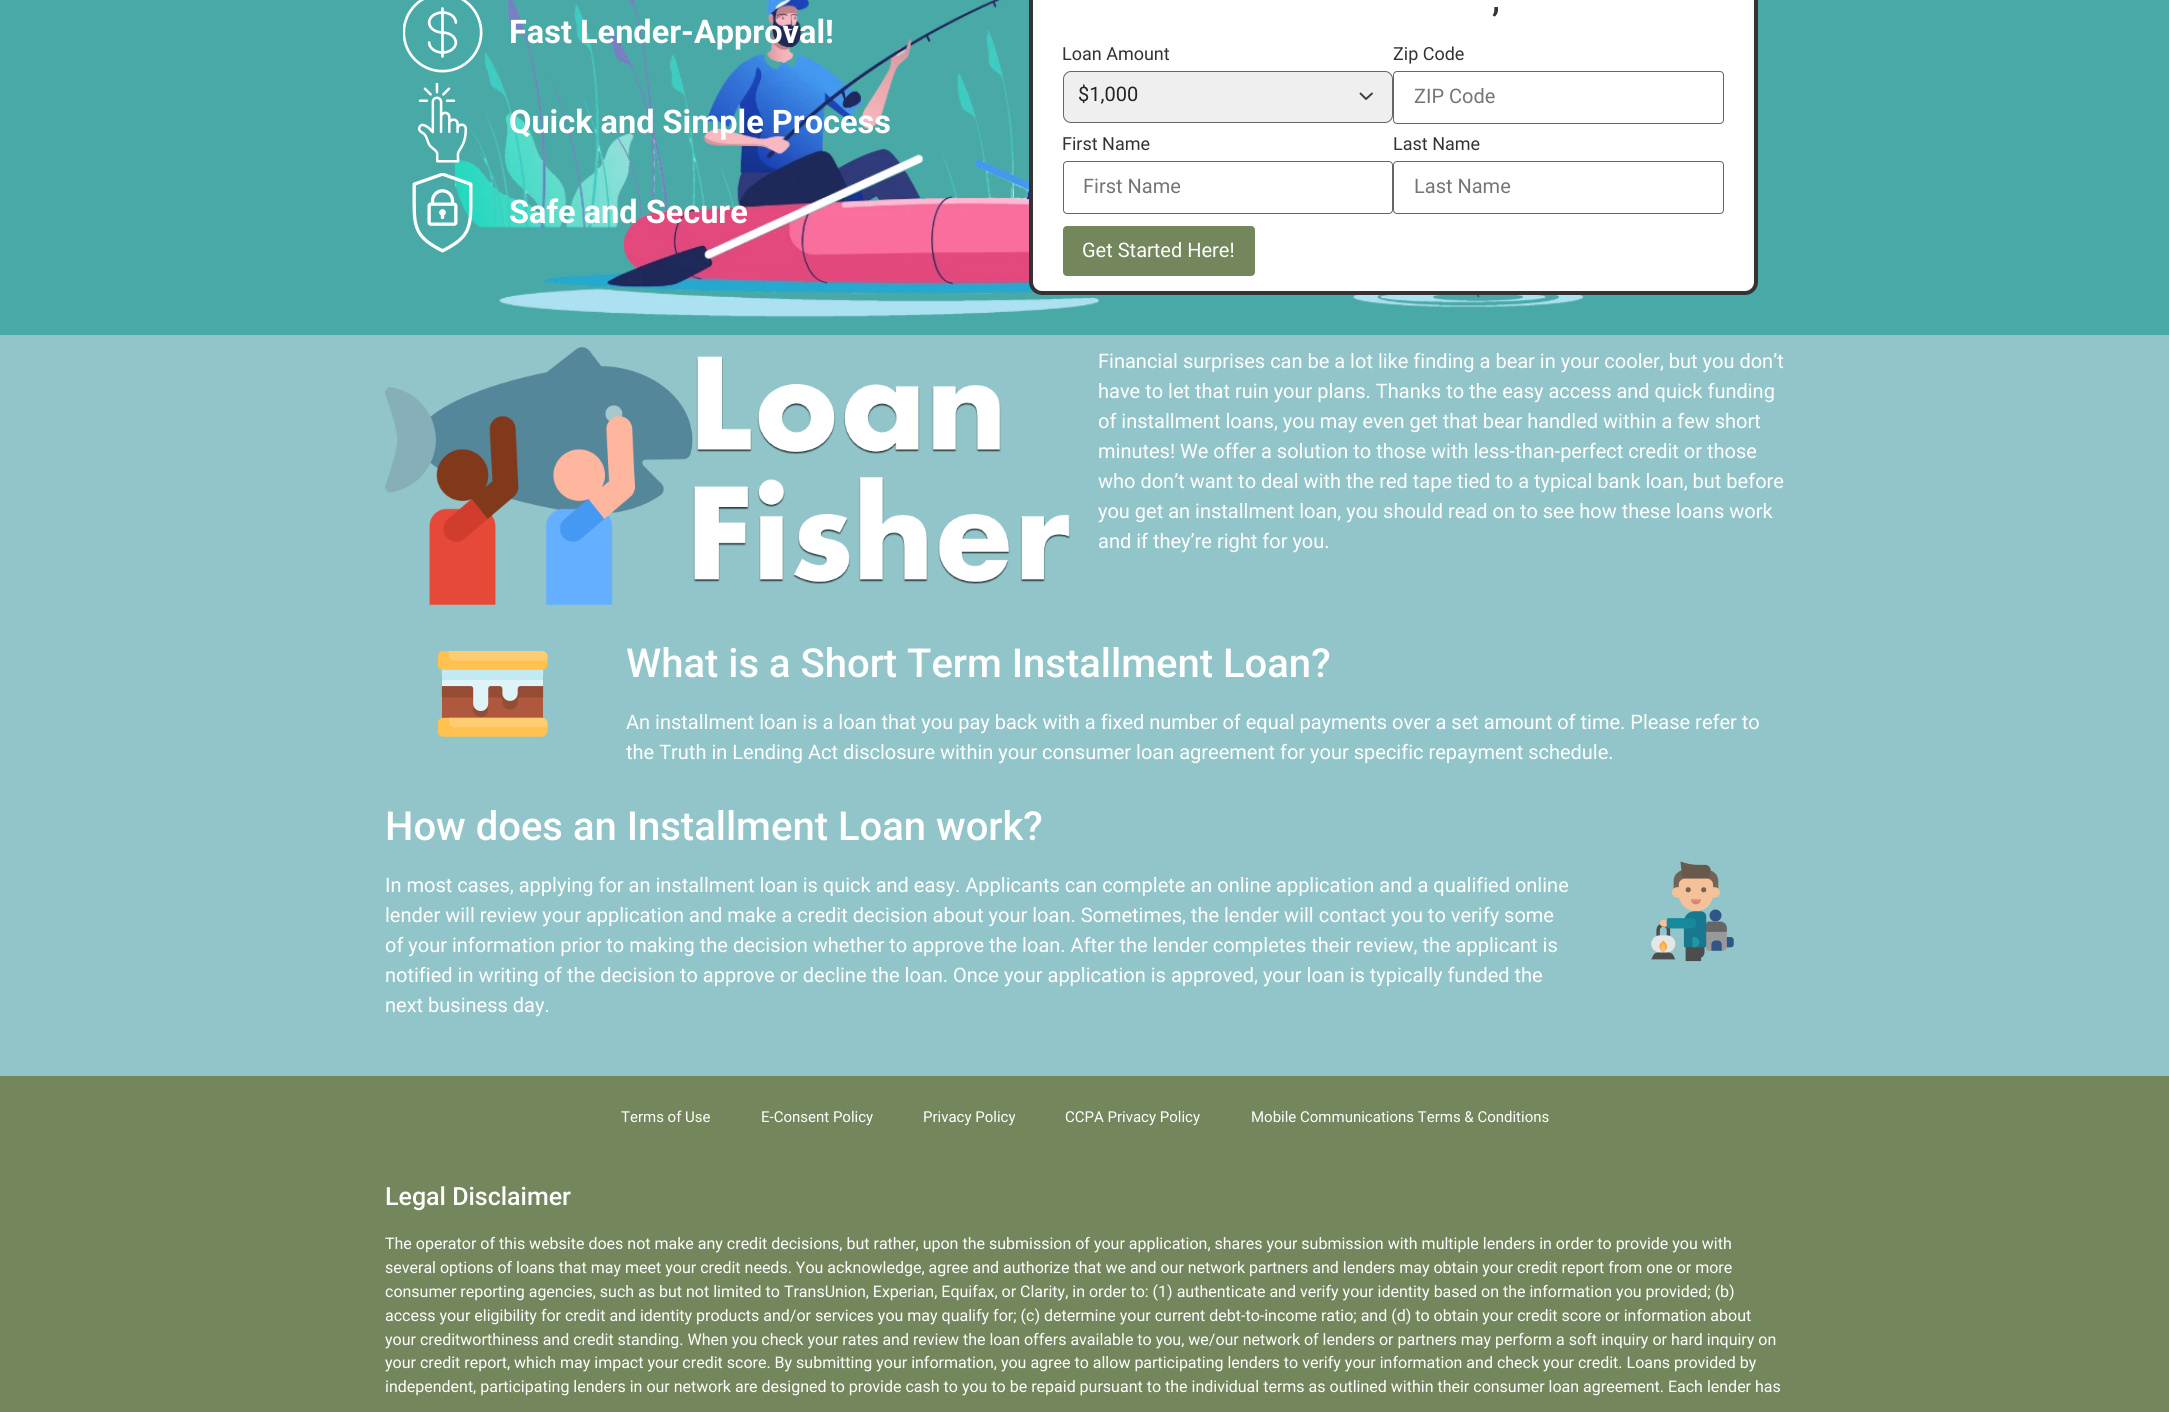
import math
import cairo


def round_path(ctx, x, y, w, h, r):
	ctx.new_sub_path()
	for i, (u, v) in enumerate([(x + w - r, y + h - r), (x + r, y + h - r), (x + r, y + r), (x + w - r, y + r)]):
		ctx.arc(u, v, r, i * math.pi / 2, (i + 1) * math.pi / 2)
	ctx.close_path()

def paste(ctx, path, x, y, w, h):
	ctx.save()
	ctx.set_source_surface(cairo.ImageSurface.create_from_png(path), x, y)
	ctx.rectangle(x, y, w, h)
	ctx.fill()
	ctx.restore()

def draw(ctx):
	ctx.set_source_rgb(0.573, 0.773, 0.788)
	ctx.paint()
	ctx.set_source_rgb(0.282, 0.663, 0.655)
	ctx.rectangle(0, 0, 2169, 335)
	ctx.fill()
	paste(ctx, 'media/1.png', 455, 0, 1129, 318)
	paste(ctx, 'media/2.png', 403, 0, 80, 73)
	ctx.select_font_face('Roboto', cairo.FONT_SLANT_NORMAL, cairo.FONT_WEIGHT_BOLD)
	ctx.set_font_size(32.5)
	ctx.set_source_rgb(1, 1, 1)
	ctx.move_to(509, 43)
	ctx.show_text('Fast Lender-Approval!')
	paste(ctx, 'media/3.png', 417, 83, 51, 80)
	ctx.move_to(509, 133)
	ctx.show_text('Quick and Simple Process')
	paste(ctx, 'media/4.png', 412, 173, 61, 80)
	ctx.move_to(509, 223)
	ctx.show_text('Safe and Secure')
	round_path(ctx, 1031, -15, 725, 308, 11)
	ctx.fill_preserve()
	ctx.set_source_rgb(0.2, 0.2, 0.2)
	ctx.set_line_width(4)
	ctx.stroke()
	ctx.select_font_face('Roboto Medium')
	ctx.set_font_size(35)
	ctx.move_to(1492, 11)
	ctx.show_text(',')
	ctx.select_font_face('Roboto')
	ctx.set_font_size(18)
	ctx.move_to(1062, 60)
	ctx.show_text('Loan Amount')
	ctx.set_source_rgb(0.937, 0.937, 0.937)
	round_path(ctx, 1063, 71, 330, 52, 8)
	ctx.fill()
	ctx.new_path()
	ctx.move_to(1360.5, 93.5)
	ctx.line_to(1366, 99)
	ctx.line_to(1372, 93.5)
	ctx.set_source_rgb(0.204, 0.227, 0.251)
	ctx.set_line_width(1.9)
	ctx.set_line_cap(cairo.LINE_CAP_ROUND)
	ctx.set_line_join(cairo.LINE_JOIN_ROUND)
	ctx.stroke()
	round_path(ctx, 1063.5, 71.5, 329, 51, 7.5)
	ctx.set_source_rgb(0.4, 0.4, 0.4)
	ctx.set_line_width(1)
	ctx.set_line_cap(cairo.LINE_CAP_BUTT)
	ctx.set_line_join(cairo.LINE_JOIN_MITER)
	ctx.stroke()
	ctx.set_font_size(20)
	ctx.set_source_rgb(0.129, 0.145, 0.161)
	ctx.move_to(1078, 101)
	ctx.show_text('$1,000')
	ctx.set_font_size(18)
	ctx.set_source_rgb(0.2, 0.2, 0.2)
	ctx.move_to(1393, 60)
	ctx.show_text('Zip Code')
	round_path(ctx, 1393.5, 71.5, 330, 52, 3.5)
	ctx.set_source_rgb(0.4, 0.4, 0.4)
	ctx.stroke()
	ctx.set_font_size(20)
	ctx.set_source_rgb(0.459, 0.459, 0.459)
	ctx.move_to(1414, 103)
	ctx.show_text('ZIP Code')
	ctx.set_font_size(18)
	ctx.set_source_rgb(0.2, 0.2, 0.2)
	ctx.move_to(1062, 150)
	ctx.show_text('First Name')
	round_path(ctx, 1063.5, 161.5, 329, 52, 3.5)
	ctx.set_source_rgb(0.4, 0.4, 0.4)
	ctx.stroke()
	ctx.set_font_size(20)
	ctx.set_source_rgb(0.459, 0.459, 0.459)
	ctx.move_to(1083, 193)
	ctx.show_text('First Name')
	ctx.set_font_size(18)
	ctx.set_source_rgb(0.2, 0.2, 0.2)
	ctx.move_to(1393, 150)
	ctx.show_text('Last Name')
	round_path(ctx, 1393.5, 161.5, 330, 52, 3.5)
	ctx.set_source_rgb(0.4, 0.4, 0.4)
	ctx.stroke()
	ctx.set_font_size(20)
	ctx.set_source_rgb(0.459, 0.459, 0.459)
	ctx.move_to(1414, 193)
	ctx.show_text('Last Name')
	ctx.set_source_rgb(0.451, 0.525, 0.361)
	round_path(ctx, 1063, 226, 192, 50, 4)
	ctx.fill()
	ctx.set_source_rgb(1, 1, 1)
	ctx.move_to(1082, 257)
	ctx.show_text('Get Started Here!')
	paste(ctx, 'media/5.png', 385, 347, 686, 258)
	for x, y, s in [
		(1098, 368, 'Financial surprises can be a lot like finding a bear in your cooler, but you don’t'),
		(1098, 398, 'have to let that ruin your plans. Thanks to the easy access and quick funding'),
		(1098, 428, 'of installment loans, you may even get that bear handled within a few short'),
		(1098, 458, 'minutes! We offer a solution to those with less-than-perfect credit or those'),
		(1098, 488, 'who don’t want to deal with the red tape tied to a typical bank loan, but before'),
		(1098, 518, 'you get an installment loan, you should read on to see how these loans work'),
		(1098, 548, 'and if they’re right for you.'),
	]:
		ctx.move_to(x, y)
		ctx.show_text(s)
	paste(ctx, 'media/6.png', 438, 651, 110, 86)
	ctx.select_font_face('Roboto Medium')
	ctx.set_font_size(40)
	ctx.move_to(626, 677)
	ctx.show_text('What is a Short Term Installment Loan?')
	ctx.select_font_face('Roboto')
	ctx.set_font_size(20)
	ctx.move_to(626, 729)
	ctx.show_text('An installment loan is a loan that you pay back with a fixed number of equal payments over a set amount of time. Please refer to')
	ctx.move_to(626, 759)
	ctx.show_text('the Truth in Lending Act disclosure within your consumer loan agreement for your specific repayment schedule.')
	ctx.select_font_face('Roboto Medium')
	ctx.set_font_size(40)
	ctx.move_to(385, 840)
	ctx.show_text('How does an Installment Loan work?')
	ctx.select_font_face('Roboto')
	ctx.set_font_size(20)
	for x, y, s in [
		(385, 892, 'In most cases, applying for an installment loan is quick and easy. Applicants can complete an online application and a qualified online'),
		(385, 922, 'lender will review your application and make a credit decision about your loan. Sometimes, the lender will contact you to verify some'),
		(385, 952, 'of your information prior to making the decision whether to approve the loan. After the lender completes their review, the applicant is'),
		(385, 982, 'notified in writing of the decision to approve or decline the loan. Once your application is approved, your loan is typically funded the'),
		(385, 1012, 'next business day.'),
	]:
		ctx.move_to(x, y)
		ctx.show_text(s)
	paste(ctx, 'media/7.png', 1651, 861, 83, 101)
	ctx.set_source_rgb(0.451, 0.525, 0.361)
	ctx.rectangle(0, 1076, 2169, 336)
	ctx.fill()
	ctx.set_font_size(15)
	ctx.set_source_rgb(1, 1, 1)
	for x, y, s in [
		(621, 1122, 'Terms of Use'),
		(761, 1122, 'E-Consent Policy'),
		(923, 1122, 'Privacy Policy'),
		(1065, 1122, 'CCPA Privacy Policy'),
		(1251, 1122, 'Mobile Communications Terms & Conditions'),
	]:
		ctx.move_to(x, y)
		ctx.show_text(s)
	ctx.select_font_face('Roboto Medium')
	ctx.set_font_size(25)
	ctx.move_to(385, 1205)
	ctx.show_text('Legal Disclaimer')
	ctx.select_font_face('Roboto')
	ctx.set_font_size(16)
	for x, y, s in [
		(385, 1249, 'The operator of this website does not make any credit decisions, but rather, upon the submission of your application, shares your submission with multiple lenders in order to provide you with'),
		(385, 1273, 'several options of loans that may meet your credit needs. You acknowledge, agree and authorize that we and our network partners and lenders may obtain your credit report from one or more'),
		(385, 1297, 'consumer reporting agencies, such as but not limited to TransUnion, Experian, Equifax, or Clarity, in order to: (1) authenticate and verify your identity based on the information you provided; (b)'),
		(385, 1321, 'access your eligibility for credit and identity products and/or services you may qualify for; (c) determine your current debt-to-income ratio; and (d) to obtain your credit score or information about'),
		(385, 1345, 'your creditworthiness and credit standing. When you check your rates and review the loan offers available to you, we/our network of lenders or partners may perform a soft inquiry or hard inquiry on'),
		(385, 1368, 'your credit report, which may impact your credit score. By submitting your information, you agree to allow participating lenders to verify your information and check your credit. Loans provided by'),
		(385, 1392, 'independent, participating lenders in our network are designed to provide cash to you to be repaid pursuant to the individual terms as outlined within their consumer loan agreement. Each lender has'),
	]:
		ctx.move_to(x, y)
		ctx.show_text(s)


surface = cairo.ImageSurface(cairo.FORMAT_RGB24, 2169, 1412)
ctx = cairo.Context(surface)
options = cairo.FontOptions()
options.set_hint_metrics(cairo.HINT_METRICS_OFF)
options.set_hint_style(cairo.HINT_STYLE_NONE)
ctx.set_font_options(options)
ctx.set_miter_limit(4)
draw(ctx)
surface.write_to_png('image.png')
